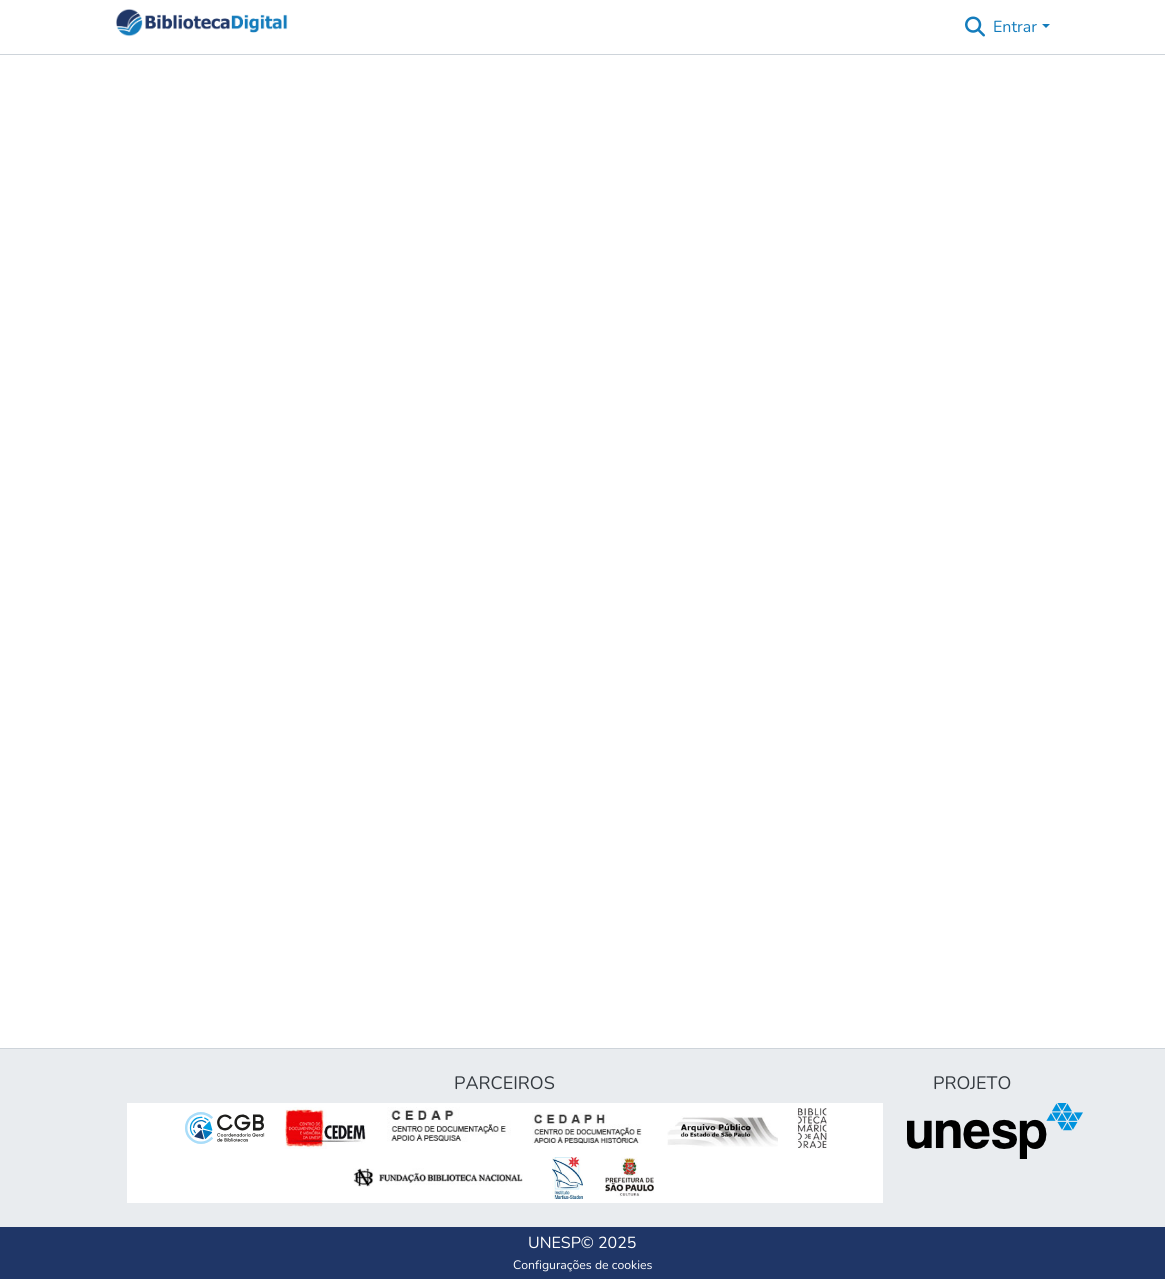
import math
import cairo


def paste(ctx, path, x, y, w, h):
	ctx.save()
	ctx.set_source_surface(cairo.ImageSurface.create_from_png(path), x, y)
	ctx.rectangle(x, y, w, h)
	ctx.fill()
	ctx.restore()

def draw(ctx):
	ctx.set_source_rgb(1, 1, 1)
	ctx.paint()
	ctx.set_source_rgb(0.808, 0.831, 0.855)
	ctx.rectangle(0, 54, 1165, 1)
	ctx.fill()
	paste(ctx, 'media/1.png', 116, 9, 172, 28)
	paste(ctx, 'media/2.png', 965, 16, 20, 21)
	ctx.select_font_face('Nunito')
	ctx.set_font_size(16)
	ctx.set_source_rgb(0.078, 0.486, 0.737)
	ctx.move_to(993, 32)
	ctx.show_text('Entrar')
	ctx.new_path()
	ctx.move_to(1042, 24)
	ctx.line_to(1050, 24)
	ctx.line_to(1046, 28)
	ctx.close_path()
	ctx.fill()
	ctx.set_source_rgb(0.808, 0.831, 0.855)
	ctx.rectangle(0, 1048, 1165, 1)
	ctx.fill()
	ctx.set_source_rgb(0.914, 0.925, 0.937)
	ctx.rectangle(0, 1049, 1165, 178)
	ctx.fill()
	ctx.set_font_size(18)
	ctx.set_source_rgb(0.204, 0.227, 0.251)
	ctx.move_to(454, 1089)
	ctx.show_text('PARCEIROS')
	ctx.set_source_rgb(1, 1, 1)
	ctx.rectangle(127, 1103, 756, 100)
	ctx.fill()
	paste(ctx, 'media/3.png', 185, 1112, 80, 32)
	paste(ctx, 'media/4.png', 285, 1107, 81, 42)
	paste(ctx, 'media/5.png', 387, 1107, 124, 35)
	paste(ctx, 'media/6.png', 532, 1112, 110, 32)
	paste(ctx, 'media/7.png', 667, 1116, 111, 31)
	paste(ctx, 'media/8.png', 796, 1108, 31, 41)
	paste(ctx, 'media/9.png', 353, 1168, 170, 19)
	paste(ctx, 'media/10.png', 552, 1157, 31, 42)
	paste(ctx, 'media/11.png', 605, 1157, 49, 40)
	ctx.set_source_rgb(0.204, 0.227, 0.251)
	ctx.move_to(933, 1089)
	ctx.show_text('PROJETO')
	paste(ctx, 'media/12.png', 907, 1103, 176, 56)
	ctx.set_source_rgb(0.122, 0.212, 0.404)
	ctx.rectangle(0, 1227, 1165, 52)
	ctx.fill()
	ctx.set_font_size(16)
	ctx.set_source_rgb(1, 1, 1)
	ctx.move_to(528, 1248)
	ctx.show_text('UNESP© 2025')
	ctx.set_font_size(12.25)
	ctx.move_to(513, 1269)
	ctx.show_text('Configurações de cookies')


surface = cairo.ImageSurface(cairo.FORMAT_RGB24, 1165, 1279)
ctx = cairo.Context(surface)
options = cairo.FontOptions()
options.set_hint_metrics(cairo.HINT_METRICS_OFF)
options.set_hint_style(cairo.HINT_STYLE_NONE)
ctx.set_font_options(options)
ctx.set_miter_limit(4)
draw(ctx)
surface.write_to_png('image.png')
